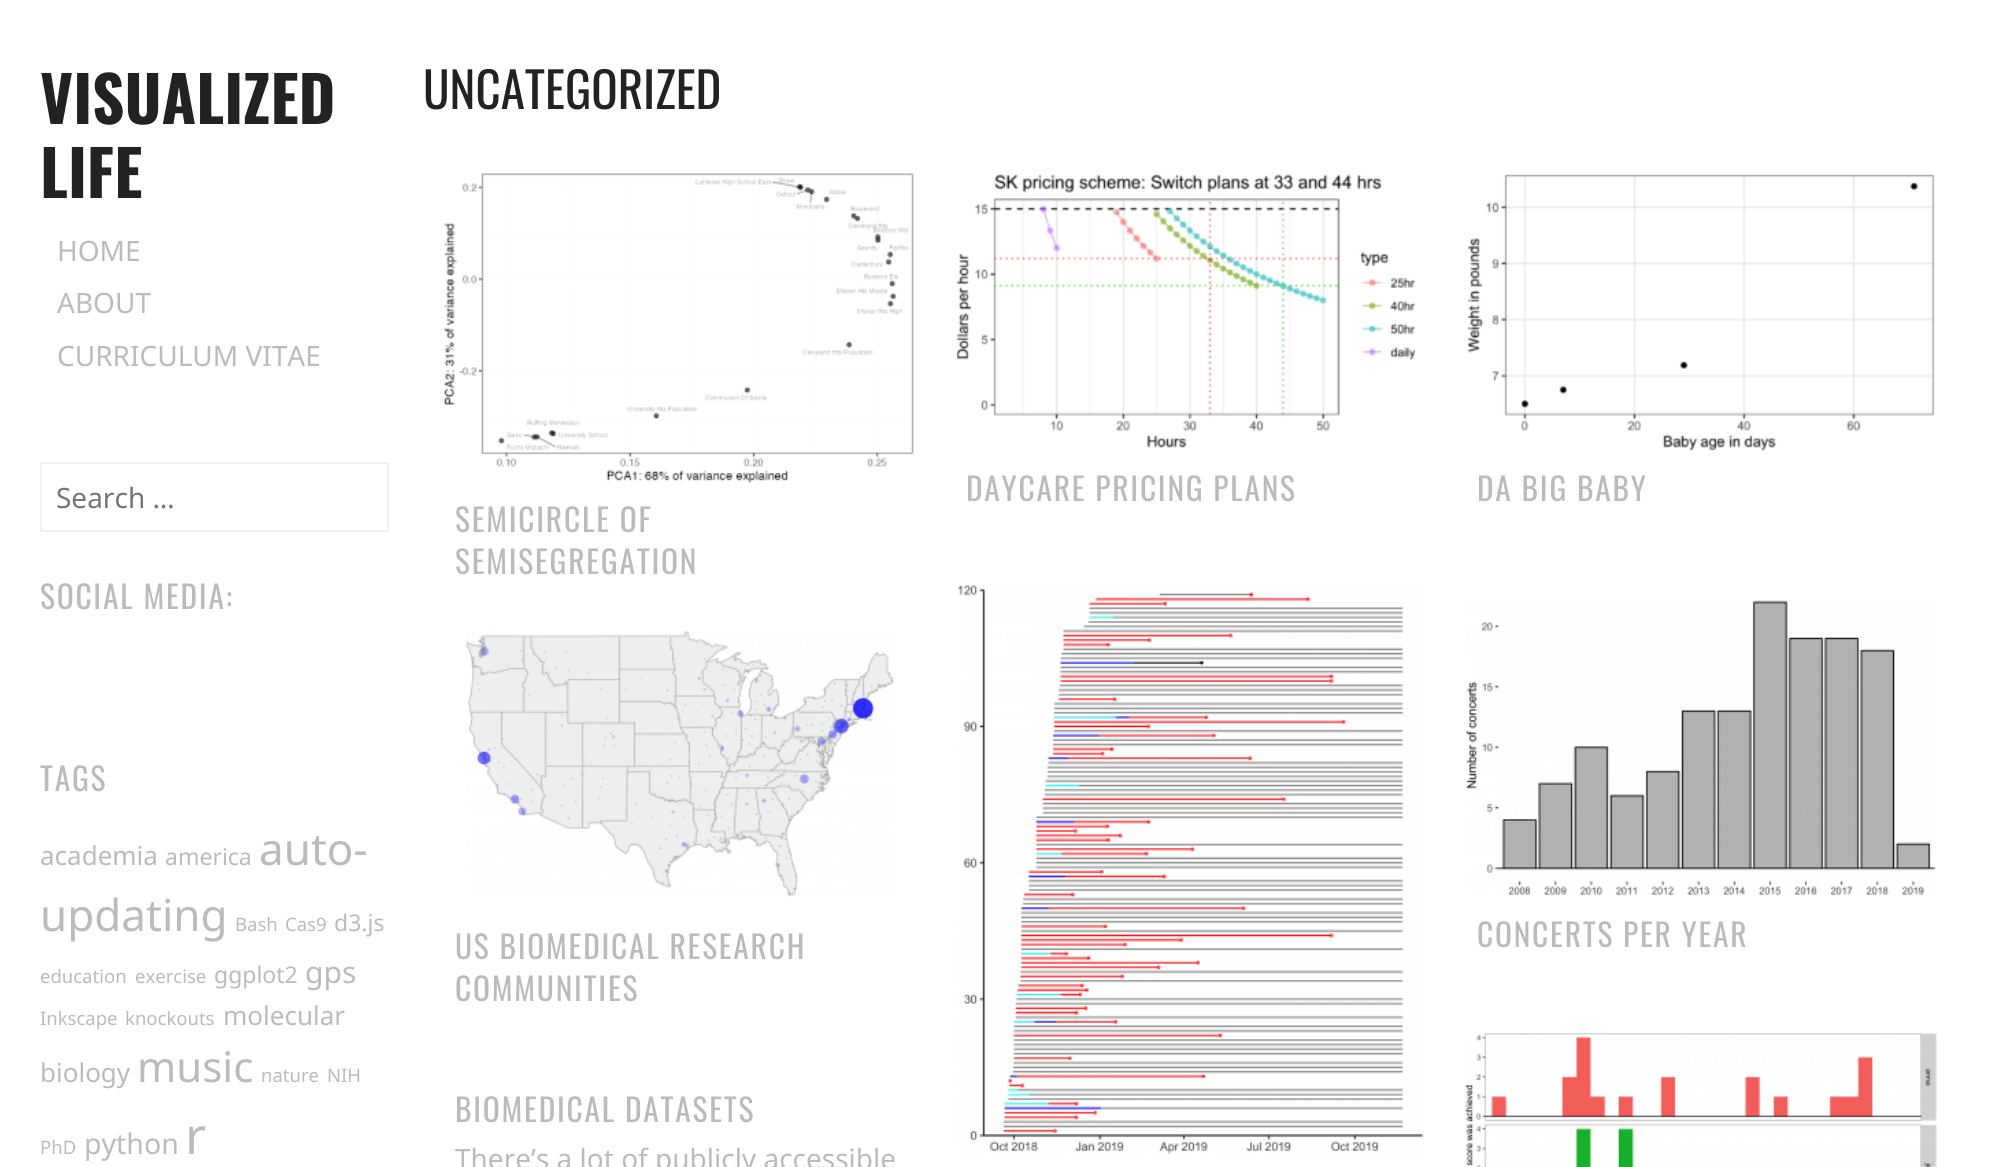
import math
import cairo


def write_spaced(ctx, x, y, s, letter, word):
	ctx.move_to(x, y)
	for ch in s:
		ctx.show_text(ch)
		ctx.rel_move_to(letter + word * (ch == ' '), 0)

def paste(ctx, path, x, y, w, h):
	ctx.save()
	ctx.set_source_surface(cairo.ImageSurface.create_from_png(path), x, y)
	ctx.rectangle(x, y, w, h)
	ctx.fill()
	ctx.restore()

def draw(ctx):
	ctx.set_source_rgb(1, 1, 1)
	ctx.paint()
	ctx.select_font_face('Oswald', cairo.FONT_SLANT_NORMAL, cairo.FONT_WEIGHT_BOLD)
	ctx.set_font_size(63)
	ctx.set_source_rgb(0.133, 0.133, 0.133)
	ctx.move_to(40, 124)
	ctx.show_text('VISUALIZED')
	ctx.move_to(40, 198)
	ctx.show_text('LIFE')
	ctx.select_font_face('Noto Sans')
	ctx.set_font_size(28)
	ctx.set_source_rgb(0.733, 0.733, 0.733)
	for x, y, s in [
		(57, 261, 'HOME'),
		(57, 313, 'ABOUT'),
		(57, 366, 'CURRICULUM VITAE'),
	]:
		ctx.move_to(x, y)
		ctx.show_text(s)
	ctx.select_font_face('Oswald')
	ctx.set_font_size(49)
	ctx.set_source_rgb(0.133, 0.133, 0.133)
	ctx.move_to(423, 109)
	ctx.show_text('UNCATEGORIZED')
	paste(ctx, 'media/1.png', 956, 174, 460, 274)
	ctx.set_font_size(31.5)
	ctx.set_source_rgb(0.733, 0.733, 0.733)
	write_spaced(ctx, 966, 501, 'DAYCARE PRICING PLANS', 1.75, 0)
	paste(ctx, 'media/2.png', 1467, 174, 468, 277)
	write_spaced(ctx, 1477, 501, 'DA BIG BABY', 1.75, 0)
	paste(ctx, 'media/3.png', 444, 173, 470, 310)
	write_spaced(ctx, 455, 532, 'SEMICIRCLE OF', 1.75, 0)
	write_spaced(ctx, 455, 574, 'SEMISEGREGATION', 1.75, 0)
	paste(ctx, 'media/4.png', 466, 630, 429, 267)
	write_spaced(ctx, 455, 959, 'US BIOMEDICAL RESEARCH', 1.75, 0)
	write_spaced(ctx, 455, 1001, 'COMMUNITIES', 1.75, 0)
	paste(ctx, 'media/5.png', 958, 585, 466, 569)
	paste(ctx, 'media/6.png', 1466, 600, 470, 295)
	write_spaced(ctx, 1477, 947, 'CONCERTS PER YEAR', 1.75, 0)
	write_spaced(ctx, 455, 1122, 'BIOMEDICAL DATASETS', 1.75, 0)
	ctx.select_font_face('Noto Sans')
	ctx.set_font_size(28)
	ctx.move_to(455, 1169)
	ctx.show_text('There’s a lot of publicly accessible')
	paste(ctx, 'media/7.png', 1465, 1033, 472, 134)
	ctx.rectangle(41, 463, 347, 68)
	ctx.set_source_rgb(0.945, 0.945, 0.945)
	ctx.stroke()
	ctx.set_source_rgb(0.459, 0.459, 0.459)
	ctx.move_to(56, 508)
	ctx.show_text('Search …')
	ctx.select_font_face('Oswald')
	ctx.set_font_size(31.5)
	ctx.set_source_rgb(0.733, 0.733, 0.733)
	write_spaced(ctx, 40, 609, 'SOCIAL MEDIA:', 1.75, 0)
	write_spaced(ctx, 40, 791, 'TAGS', 1.75, 0)
	ctx.select_font_face('Noto Sans')
	ctx.set_font_size(26)
	ctx.move_to(40, 865)
	ctx.show_text('academia')
	ctx.set_font_size(23)
	ctx.move_to(165, 865)
	ctx.show_text('america')
	ctx.set_font_size(44)
	ctx.move_to(259, 865)
	ctx.show_text('auto-')
	ctx.move_to(40, 931)
	ctx.show_text('updating')
	ctx.set_font_size(18.5)
	ctx.move_to(235, 931)
	ctx.show_text('Bash')
	ctx.move_to(285, 931)
	ctx.show_text('Cas9')
	ctx.set_font_size(23)
	ctx.move_to(334, 931)
	ctx.show_text('d3.js')
	ctx.set_font_size(18.5)
	ctx.move_to(40, 983)
	ctx.show_text('education')
	ctx.move_to(135, 983)
	ctx.show_text('exercise')
	ctx.set_font_size(23)
	ctx.move_to(214, 983)
	ctx.show_text('ggplot2')
	ctx.set_font_size(30)
	ctx.move_to(305, 983)
	ctx.show_text('gps')
	ctx.set_font_size(18.5)
	ctx.move_to(40, 1025)
	ctx.show_text('Inkscape')
	ctx.move_to(125, 1025)
	ctx.show_text('knockouts')
	ctx.set_font_size(26)
	ctx.move_to(223, 1025)
	ctx.show_text('molecular')
	ctx.move_to(40, 1082)
	ctx.show_text('biology')
	ctx.set_font_size(42)
	ctx.move_to(137, 1082)
	ctx.show_text('music')
	ctx.set_font_size(18.5)
	for x, y, s in [
		(261, 1082, 'nature'),
		(327, 1082, 'NIH'),
		(40, 1154, 'PhD'),
	]:
		ctx.move_to(x, y)
		ctx.show_text(s)
	ctx.set_font_size(28.5)
	ctx.move_to(84, 1154)
	ctx.show_text('python')
	ctx.set_font_size(51)
	ctx.move_to(185, 1154)
	ctx.show_text('r')


surface = cairo.ImageSurface(cairo.FORMAT_RGB24, 1996, 1167)
ctx = cairo.Context(surface)
options = cairo.FontOptions()
options.set_hint_metrics(cairo.HINT_METRICS_OFF)
options.set_hint_style(cairo.HINT_STYLE_NONE)
ctx.set_font_options(options)
ctx.set_miter_limit(4)
draw(ctx)
surface.write_to_png('image.png')
